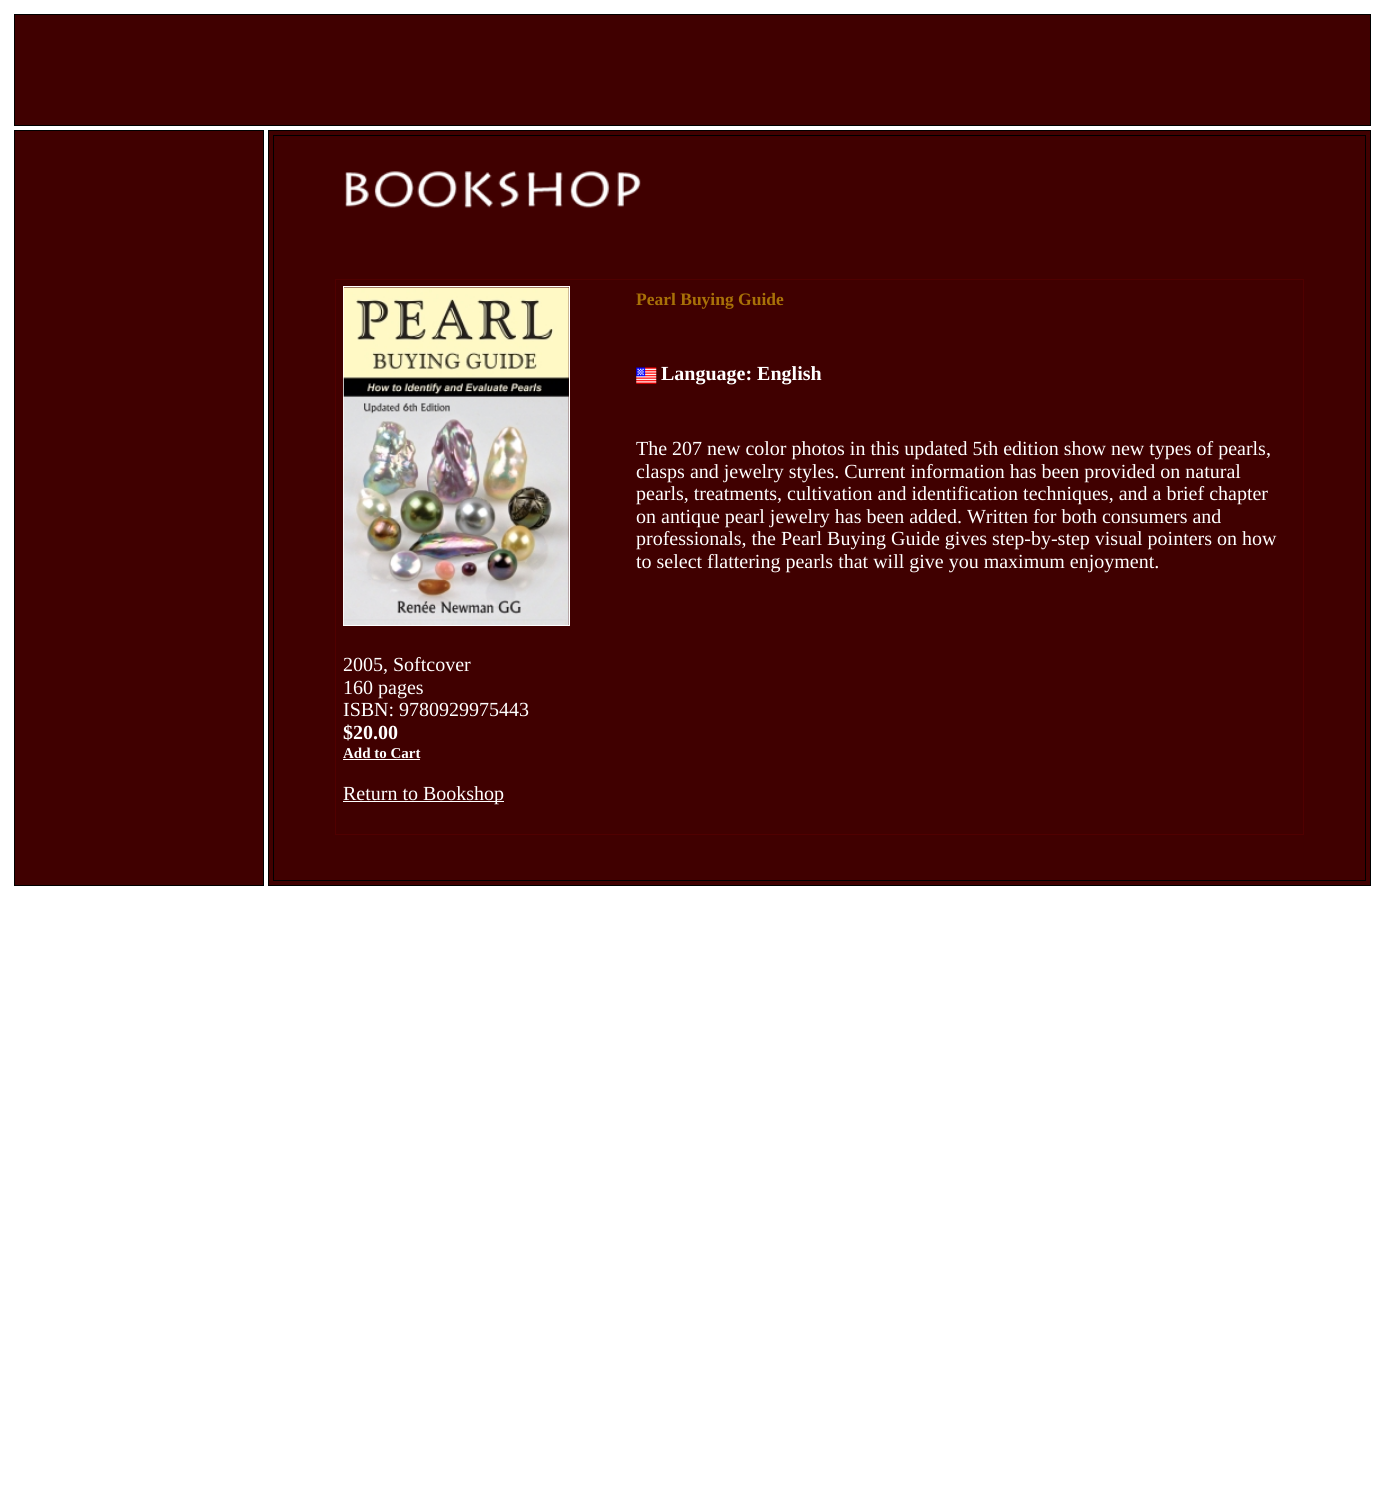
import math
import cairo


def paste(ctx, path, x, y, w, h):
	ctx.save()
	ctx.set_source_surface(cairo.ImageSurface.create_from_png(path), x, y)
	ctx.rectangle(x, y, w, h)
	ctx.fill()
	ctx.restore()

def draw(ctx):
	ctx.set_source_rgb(1, 1, 1)
	ctx.paint()
	ctx.set_source_rgb(0.251, 0, 0)
	ctx.rectangle(14.5, 14.5, 1356, 111)
	ctx.fill_preserve()
	ctx.set_source_rgb(0, 0, 0)
	ctx.set_line_width(1)
	ctx.stroke()
	ctx.set_source_rgb(0.251, 0, 0)
	ctx.rectangle(14.5, 130.5, 249, 755)
	ctx.fill_preserve()
	ctx.set_source_rgb(0, 0, 0)
	ctx.stroke()
	ctx.set_source_rgb(0.251, 0, 0)
	ctx.rectangle(268.5, 130.5, 1102, 755)
	ctx.fill_preserve()
	ctx.set_source_rgb(0, 0, 0)
	ctx.stroke()
	ctx.rectangle(273.5, 135.5, 1092, 745)
	ctx.stroke()
	paste(ctx, 'media/1.png', 345, 171, 296, 37)
	ctx.rectangle(335.5, 279.5, 968, 555)
	ctx.set_source_rgb(0.314, 0, 0)
	ctx.stroke()
	ctx.select_font_face('Liberation Serif', cairo.FONT_SLANT_NORMAL, cairo.FONT_WEIGHT_BOLD)
	ctx.set_font_size(17.5)
	ctx.set_source_rgb(0.659, 0.443, 0.031)
	ctx.move_to(636, 305)
	ctx.show_text('Pearl Buying Guide')
	paste(ctx, 'media/2.png', 636, 367, 21, 17)
	ctx.set_font_size(20)
	ctx.set_source_rgb(1, 1, 1)
	ctx.move_to(661, 380)
	ctx.show_text('Language: English')
	ctx.select_font_face('Liberation Serif')
	for x, y, s in [
		(636, 455, 'The 207 new color photos in this updated 5th edition show new types of pearls,'),
		(636, 478, 'clasps and jewelry styles. Current information has been provided on natural'),
		(636, 500, 'pearls, treatments, cultivation and identification techniques, and a brief chapter'),
		(636, 523, 'on antique pearl jewelry has been added. Written for both consumers and'),
		(636, 545, 'professionals, the Pearl Buying Guide gives step-by-step visual pointers on how'),
		(636, 568, 'to select flattering pearls that will give you maximum enjoyment.'),
	]:
		ctx.move_to(x, y)
		ctx.show_text(s)
	ctx.rectangle(343.5, 286.5, 226, 339)
	ctx.stroke()
	paste(ctx, 'media/3.png', 343, 287, 226, 338)
	for x, y, s in [
		(343, 671, '2005, Softcover'),
		(343, 694, '160 pages'),
		(343, 716, 'ISBN: 9780929975443'),
	]:
		ctx.move_to(x, y)
		ctx.show_text(s)
	ctx.select_font_face('Liberation Serif', cairo.FONT_SLANT_NORMAL, cairo.FONT_WEIGHT_BOLD)
	ctx.move_to(343, 739)
	ctx.show_text('$20.00')
	ctx.set_font_size(15)
	ctx.move_to(343, 758)
	ctx.show_text('Add to Cart')
	ctx.rectangle(343, 759, 77, 1)
	ctx.fill()
	ctx.rectangle(343, 801, 161, 1)
	ctx.fill()
	ctx.select_font_face('Liberation Serif')
	ctx.set_font_size(20)
	ctx.move_to(343, 800)
	ctx.show_text('Return to Bookshop')


surface = cairo.ImageSurface(cairo.FORMAT_RGB24, 1385, 1496)
ctx = cairo.Context(surface)
options = cairo.FontOptions()
options.set_hint_metrics(cairo.HINT_METRICS_OFF)
options.set_hint_style(cairo.HINT_STYLE_NONE)
ctx.set_font_options(options)
ctx.set_miter_limit(4)
draw(ctx)
surface.write_to_png('image.png')
